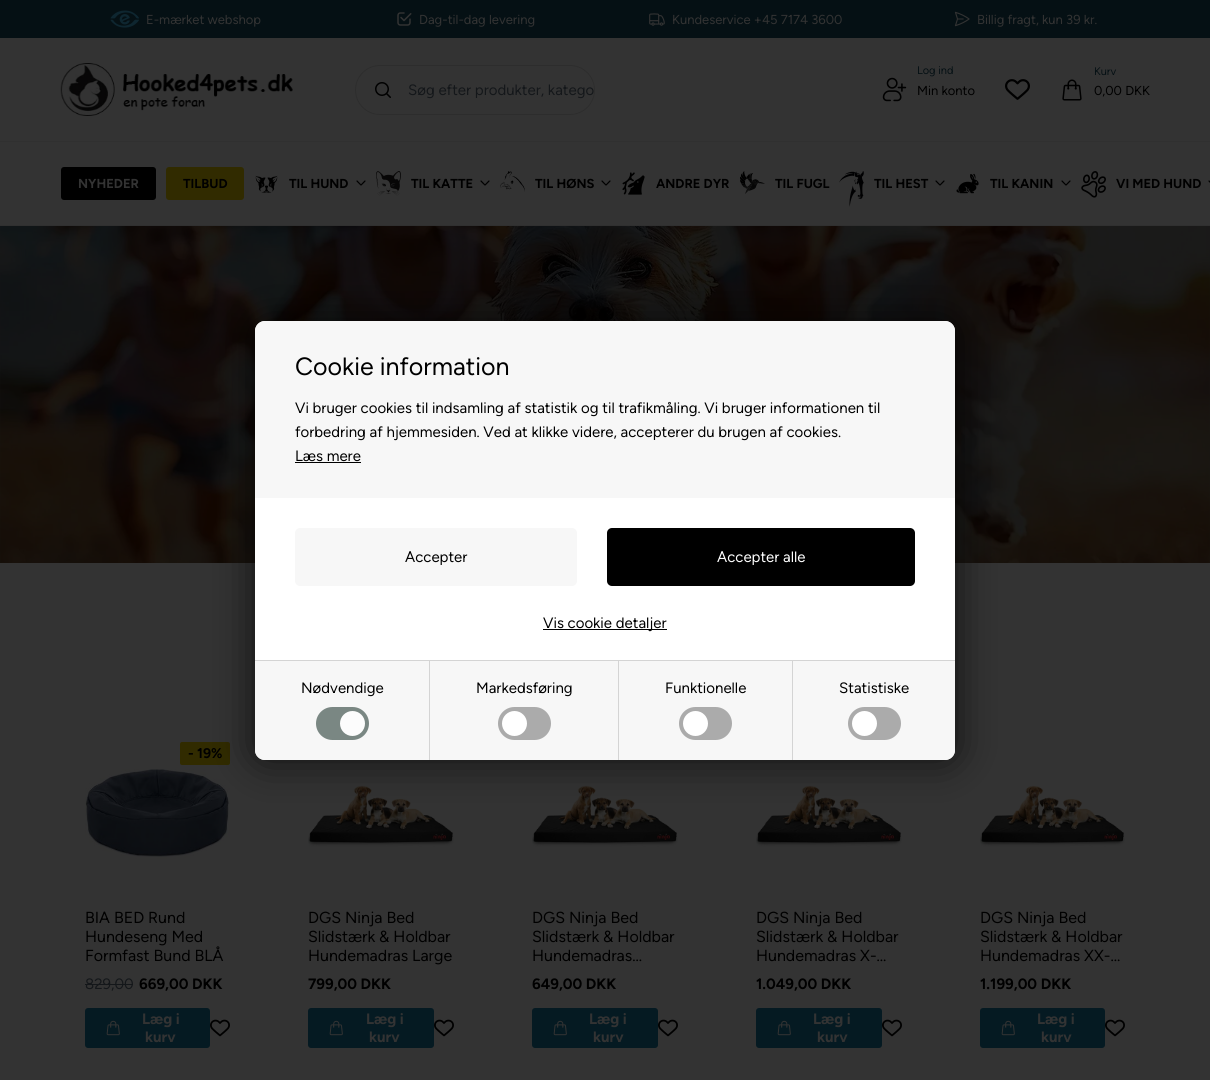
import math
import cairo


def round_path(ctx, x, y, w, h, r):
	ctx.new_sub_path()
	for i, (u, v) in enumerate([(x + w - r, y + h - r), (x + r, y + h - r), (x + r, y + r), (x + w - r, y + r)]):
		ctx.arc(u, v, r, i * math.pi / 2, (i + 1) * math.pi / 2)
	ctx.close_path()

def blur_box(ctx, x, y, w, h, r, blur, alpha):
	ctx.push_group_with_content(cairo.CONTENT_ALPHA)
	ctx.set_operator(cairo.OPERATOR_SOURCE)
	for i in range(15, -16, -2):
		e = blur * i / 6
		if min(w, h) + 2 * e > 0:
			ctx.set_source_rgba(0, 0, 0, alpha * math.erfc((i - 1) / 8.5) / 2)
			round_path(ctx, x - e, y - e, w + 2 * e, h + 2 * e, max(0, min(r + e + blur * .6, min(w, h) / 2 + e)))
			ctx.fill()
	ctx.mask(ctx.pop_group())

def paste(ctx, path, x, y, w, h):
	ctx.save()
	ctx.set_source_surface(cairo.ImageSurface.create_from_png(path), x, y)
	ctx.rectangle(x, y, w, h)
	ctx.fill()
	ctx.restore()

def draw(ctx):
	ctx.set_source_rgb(0.2, 0.2, 0.2)
	ctx.paint()
	ctx.set_source_rgb(0.02, 0.063, 0.082)
	ctx.rectangle(0, 0, 1210, 38)
	ctx.fill()
	paste(ctx, 'media/1.png', 110, 10, 29, 18)
	ctx.select_font_face('Figtree Light')
	ctx.set_font_size(13)
	ctx.set_source_rgb(0.2, 0.2, 0.2)
	ctx.move_to(146, 24)
	ctx.show_text('E-mærket webshop')
	paste(ctx, 'media/2.png', 397, 12, 15, 14)
	ctx.move_to(419, 24)
	ctx.show_text('Dag-til-dag levering')
	paste(ctx, 'media/3.png', 649, 13, 16, 13)
	ctx.move_to(672, 24)
	ctx.show_text('Kundeservice +45 7174 3600')
	paste(ctx, 'media/4.png', 954, 11, 16, 16)
	ctx.move_to(977, 24)
	ctx.show_text('Billig fragt, kun 39 kr.')
	ctx.set_source_rgb(0.188, 0.188, 0.188)
	ctx.rectangle(0, 225, 1210, 1)
	ctx.fill()
	paste(ctx, 'media/5.png', 60, 63, 233, 53)
	paste(ctx, 'media/6.png', 375, 82, 16, 16)
	round_path(ctx, 355.5, 65.5, 239, 49, 24.5)
	ctx.set_source_rgb(0.176, 0.176, 0.176)
	ctx.set_line_width(1)
	ctx.stroke()
	ctx.set_font_size(15)
	ctx.set_source_rgb(0.082, 0.09, 0.102)
	ctx.move_to(408, 95)
	ctx.show_text('Søg efter produkter, katego')
	paste(ctx, 'media/7.png', 882, 77, 25, 25)
	ctx.set_font_size(11)
	ctx.set_source_rgb(0.02, 0.063, 0.082)
	ctx.move_to(917, 74)
	ctx.show_text('Log ind')
	ctx.set_font_size(13)
	ctx.set_source_rgb(0, 0, 0)
	ctx.move_to(917, 95)
	ctx.show_text('Min konto')
	paste(ctx, 'media/8.png', 1005, 79, 25, 21)
	paste(ctx, 'media/9.png', 1062, 79, 20, 22)
	ctx.set_font_size(11)
	ctx.set_source_rgb(0.02, 0.063, 0.082)
	ctx.move_to(1094, 75)
	ctx.show_text('Kurv')
	ctx.set_font_size(13)
	ctx.set_source_rgb(0, 0, 0)
	ctx.move_to(1094, 95)
	ctx.show_text('0,00 DKK')
	ctx.set_source_rgb(0.188, 0.188, 0.188)
	ctx.rectangle(0, 141, 1210, 1)
	ctx.fill()
	ctx.set_source_rgb(0, 0, 0)
	round_path(ctx, 61, 167, 95, 33, 3)
	ctx.fill()
	ctx.select_font_face('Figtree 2 Light')
	ctx.set_source_rgb(0.2, 0.2, 0.2)
	ctx.move_to(78, 188)
	ctx.show_text('NYHEDER')
	ctx.set_source_rgb(0.192, 0.169, 0)
	round_path(ctx, 166, 167, 78, 33, 3)
	ctx.fill()
	ctx.set_source_rgb(0, 0, 0)
	ctx.move_to(183, 188)
	ctx.show_text('TILBUD')
	paste(ctx, 'media/10.png', 255, 175, 23, 18)
	ctx.move_to(289, 188)
	ctx.show_text('TIL HUND')
	paste(ctx, 'media/11.png', 356, 180, 10, 6)
	paste(ctx, 'media/12.png', 376, 171, 25, 25)
	ctx.move_to(411, 188)
	ctx.show_text('TIL KATTE')
	paste(ctx, 'media/11.png', 480, 180, 10, 6)
	paste(ctx, 'media/13.png', 500, 171, 25, 21)
	ctx.move_to(535, 188)
	ctx.show_text('TIL HØNS')
	paste(ctx, 'media/11.png', 601, 180, 10, 6)
	paste(ctx, 'media/14.png', 622, 172, 23, 23)
	ctx.move_to(656, 188)
	ctx.show_text('ANDRE DYR')
	paste(ctx, 'media/15.png', 740, 171, 25, 23)
	ctx.move_to(775, 188)
	ctx.show_text('TIL FUGL')
	paste(ctx, 'media/16.png', 839, 171, 25, 36)
	ctx.move_to(874, 188)
	ctx.show_text('TIL HEST')
	paste(ctx, 'media/11.png', 935, 180, 10, 6)
	paste(ctx, 'media/17.png', 956, 173, 23, 21)
	ctx.move_to(990, 188)
	ctx.show_text('TIL KANIN')
	paste(ctx, 'media/11.png', 1061, 180, 10, 6)
	paste(ctx, 'media/18.png', 1081, 171, 25, 27)
	ctx.move_to(1116, 188)
	ctx.show_text('VI MED HUND')
	paste(ctx, 'media/19.png', 1208, 180, 2, 3)
	paste(ctx, 'media/20.png', 0, 226, 1210, 337)
	ctx.set_source_rgb(0.192, 0.169, 0)
	round_path(ctx, 180, 742, 50, 23, 2)
	ctx.fill()
	paste(ctx, 'media/21.png', 85, 769, 145, 90)
	paste(ctx, 'media/24.png', 308, 785, 146, 62)
	paste(ctx, 'media/25.png', 532, 785, 146, 62)
	paste(ctx, 'media/25.png', 756, 785, 146, 62)
	paste(ctx, 'media/26.png', 980, 785, 145, 62)
	ctx.set_source_rgb(0, 0, 0)
	blur_box(ctx, 255, 321, 700, 439, 10, 20, 0.7)
	ctx.set_source_rgb(1, 1, 1)
	round_path(ctx, 255, 321, 700, 439, 10)
	ctx.fill()
	ctx.set_source_rgb(0.965, 0.965, 0.965)
	ctx.new_path()
	ctx.move_to(265, 321)
	ctx.line_to(945, 321)
	ctx.curve_to(950.5, 321, 955, 325.5, 955, 331)
	ctx.line_to(955, 396)
	ctx.line_to(255, 396)
	ctx.line_to(255, 331)
	ctx.curve_to(255, 325.5, 259.5, 321, 265, 321)
	ctx.close_path()
	ctx.fill()
	ctx.select_font_face('Figtree Light')
	ctx.set_font_size(25)
	ctx.set_source_rgb(0, 0, 0)
	ctx.move_to(295, 375)
	ctx.show_text('Cookie information')
	ctx.set_source_rgb(0.965, 0.965, 0.965)
	ctx.rectangle(255, 396, 700, 102)
	ctx.fill()
	ctx.set_font_size(15)
	ctx.set_source_rgb(0, 0, 0)
	for x, y, s in [
		(295, 413, 'Vi bruger cookies til indsamling af statistik og til trafikmåling. Vi bruger informationen til'),
		(295, 437, 'forbedring af hjemmesiden. Ved at klikke videre, accepterer du brugen af cookies.'),
		(295, 461, 'Læs mere'),
	]:
		ctx.move_to(x, y)
		ctx.show_text(s)
	ctx.rectangle(295, 462, 66, 1)
	ctx.fill()
	ctx.set_source_rgb(0.965, 0.965, 0.965)
	round_path(ctx, 295, 528, 282, 58, 5)
	ctx.fill()
	ctx.set_source_rgb(0, 0, 0)
	ctx.move_to(405, 562)
	ctx.show_text('Accepter')
	round_path(ctx, 607, 528, 308, 58, 5)
	ctx.fill()
	ctx.set_source_rgb(1, 1, 1)
	ctx.move_to(717, 562)
	ctx.show_text('Accepter alle')
	ctx.set_source_rgb(0, 0, 0)
	ctx.rectangle(543, 629, 124, 1)
	ctx.fill()
	ctx.move_to(543, 628)
	ctx.show_text('Vis cookie detaljer')
	ctx.set_source_rgb(0.965, 0.965, 0.965)
	ctx.new_path()
	ctx.move_to(255, 660)
	ctx.line_to(955, 660)
	ctx.line_to(955, 750)
	ctx.curve_to(955, 755.5, 950.5, 760, 945, 760)
	ctx.line_to(265, 760)
	ctx.curve_to(259.5, 760, 255, 755.5, 255, 750)
	ctx.close_path()
	ctx.fill()
	ctx.set_source_rgb(0.831, 0.831, 0.831)
	ctx.rectangle(255, 660, 700, 1)
	ctx.fill()
	ctx.rectangle(429, 661, 1, 99)
	ctx.fill()
	ctx.set_source_rgb(0, 0, 0)
	ctx.move_to(301, 693)
	ctx.show_text('Nødvendige')
	ctx.set_source_rgb(0.478, 0.529, 0.514)
	round_path(ctx, 316, 707, 53, 33, 16.5)
	ctx.fill()
	ctx.set_source_rgb(0.988, 0.988, 0.988)
	ctx.arc(352.5, 723.5, 12.5, 0, 2 * math.pi)
	ctx.fill()
	ctx.set_source_rgb(0.831, 0.831, 0.831)
	ctx.rectangle(618, 661, 1, 99)
	ctx.fill()
	ctx.set_source_rgb(0, 0, 0)
	ctx.move_to(476, 693)
	ctx.show_text('Markedsføring')
	ctx.set_source_rgb(0.671, 0.671, 0.671)
	round_path(ctx, 498, 707, 53, 33, 16.5)
	ctx.fill()
	ctx.set_source_rgb(1, 1, 1)
	ctx.arc(514.5, 723.5, 12.5, 0, 2 * math.pi)
	ctx.fill()
	ctx.set_source_rgb(0.831, 0.831, 0.831)
	ctx.rectangle(792, 661, 1, 99)
	ctx.fill()
	ctx.set_source_rgb(0, 0, 0)
	ctx.move_to(665, 693)
	ctx.show_text('Funktionelle')
	ctx.set_source_rgb(0.671, 0.671, 0.671)
	round_path(ctx, 679, 707, 53, 33, 16.5)
	ctx.fill()
	ctx.set_source_rgb(1, 1, 1)
	ctx.arc(695.5, 723.5, 12.5, 0, 2 * math.pi)
	ctx.fill()
	ctx.set_source_rgb(0, 0, 0)
	ctx.move_to(839, 693)
	ctx.show_text('Statistiske')
	ctx.set_source_rgb(0.671, 0.671, 0.671)
	round_path(ctx, 848, 707, 53, 33, 16.5)
	ctx.fill()
	ctx.set_source_rgb(1, 1, 1)
	ctx.arc(864.5, 723.5, 12.5, 0, 2 * math.pi)
	ctx.fill()
	ctx.select_font_face('Figtree 2 Light')
	ctx.set_font_size(14)
	ctx.set_source_rgb(0, 0, 0)
	ctx.move_to(188, 758)
	ctx.show_text('- 19%')
	ctx.select_font_face('Figtree Light')
	ctx.set_font_size(16)
	for x, y, s in [
		(85, 923, 'BIA BED Rund'),
		(85, 942, 'Hundeseng Med'),
		(85, 961, 'Formfast Bund BLÅ'),
	]:
		ctx.move_to(x, y)
		ctx.show_text(s)
	ctx.set_font_size(15)
	ctx.set_source_rgb(0.082, 0.09, 0.102)
	ctx.move_to(85, 989)
	ctx.show_text('829,00')
	ctx.rectangle(85, 984, 48, 1)
	ctx.fill()
	ctx.select_font_face('Figtree 2 Light')
	ctx.set_source_rgb(0, 0, 0)
	ctx.move_to(139, 989)
	ctx.show_text('669,00 DKK')
	ctx.set_source_rgb(0.02, 0.102, 0.133)
	round_path(ctx, 85, 1008, 125, 40, 3)
	ctx.fill()
	paste(ctx, 'media/22.png', 106, 1020, 14, 16)
	ctx.set_source_rgb(0.2, 0.2, 0.2)
	ctx.move_to(142, 1024)
	ctx.show_text('Læg i')
	ctx.move_to(145, 1042)
	ctx.show_text('kurv')
	paste(ctx, 'media/23.png', 210, 1019, 20, 18)
	ctx.select_font_face('Figtree Light')
	ctx.set_font_size(16)
	ctx.set_source_rgb(0, 0, 0)
	for x, y, s in [
		(308, 923, 'DGS Ninja Bed'),
		(308, 942, 'Slidstærk & Holdbar'),
		(308, 961, 'Hundemadras Large'),
	]:
		ctx.move_to(x, y)
		ctx.show_text(s)
	ctx.select_font_face('Figtree 2 Light')
	ctx.set_font_size(15)
	ctx.move_to(308, 989)
	ctx.show_text('799,00 DKK')
	ctx.set_source_rgb(0.02, 0.102, 0.133)
	round_path(ctx, 308, 1008, 126, 40, 3)
	ctx.fill()
	paste(ctx, 'media/22.png', 329, 1020, 14, 16)
	ctx.set_source_rgb(0.2, 0.2, 0.2)
	ctx.move_to(366, 1024)
	ctx.show_text('Læg i')
	ctx.move_to(369, 1042)
	ctx.show_text('kurv')
	paste(ctx, 'media/23.png', 434, 1019, 20, 18)
	ctx.select_font_face('Figtree Light')
	ctx.set_font_size(16)
	ctx.set_source_rgb(0, 0, 0)
	for x, y, s in [
		(532, 923, 'DGS Ninja Bed'),
		(532, 942, 'Slidstærk & Holdbar'),
		(532, 961, 'Hundemadras…'),
	]:
		ctx.move_to(x, y)
		ctx.show_text(s)
	ctx.select_font_face('Figtree 2 Light')
	ctx.set_font_size(15)
	ctx.move_to(532, 989)
	ctx.show_text('649,00 DKK')
	ctx.set_source_rgb(0.02, 0.102, 0.133)
	round_path(ctx, 532, 1008, 126, 40, 3)
	ctx.fill()
	paste(ctx, 'media/22.png', 553, 1020, 14, 16)
	ctx.set_source_rgb(0.2, 0.2, 0.2)
	ctx.move_to(589, 1024)
	ctx.show_text('Læg i')
	ctx.move_to(593, 1042)
	ctx.show_text('kurv')
	paste(ctx, 'media/23.png', 658, 1019, 20, 18)
	ctx.select_font_face('Figtree Light')
	ctx.set_font_size(16)
	ctx.set_source_rgb(0, 0, 0)
	for x, y, s in [
		(756, 923, 'DGS Ninja Bed'),
		(756, 942, 'Slidstærk & Holdbar'),
		(756, 961, 'Hundemadras X-…'),
	]:
		ctx.move_to(x, y)
		ctx.show_text(s)
	ctx.select_font_face('Figtree 2 Light')
	ctx.set_font_size(15)
	ctx.move_to(756, 989)
	ctx.show_text('1.049,00 DKK')
	ctx.set_source_rgb(0.02, 0.102, 0.133)
	round_path(ctx, 756, 1008, 126, 40, 3)
	ctx.fill()
	paste(ctx, 'media/22.png', 777, 1020, 14, 16)
	ctx.set_source_rgb(0.2, 0.2, 0.2)
	ctx.move_to(813, 1024)
	ctx.show_text('Læg i')
	ctx.move_to(817, 1042)
	ctx.show_text('kurv')
	paste(ctx, 'media/23.png', 882, 1019, 20, 18)
	ctx.select_font_face('Figtree Light')
	ctx.set_font_size(16)
	ctx.set_source_rgb(0, 0, 0)
	for x, y, s in [
		(980, 923, 'DGS Ninja Bed'),
		(980, 942, 'Slidstærk & Holdbar'),
		(980, 961, 'Hundemadras XX-…'),
	]:
		ctx.move_to(x, y)
		ctx.show_text(s)
	ctx.select_font_face('Figtree 2 Light')
	ctx.set_font_size(15)
	ctx.move_to(980, 989)
	ctx.show_text('1.199,00 DKK')
	ctx.set_source_rgb(0.02, 0.102, 0.133)
	round_path(ctx, 980, 1008, 125, 40, 3)
	ctx.fill()
	paste(ctx, 'media/22.png', 1001, 1020, 14, 16)
	ctx.set_source_rgb(0.2, 0.2, 0.2)
	ctx.move_to(1037, 1024)
	ctx.show_text('Læg i')
	ctx.move_to(1041, 1042)
	ctx.show_text('kurv')
	paste(ctx, 'media/23.png', 1105, 1019, 20, 18)


surface = cairo.ImageSurface(cairo.FORMAT_RGB24, 1210, 1080)
ctx = cairo.Context(surface)
options = cairo.FontOptions()
options.set_hint_metrics(cairo.HINT_METRICS_OFF)
options.set_hint_style(cairo.HINT_STYLE_NONE)
ctx.set_font_options(options)
ctx.set_miter_limit(4)
draw(ctx)
surface.write_to_png('image.png')
